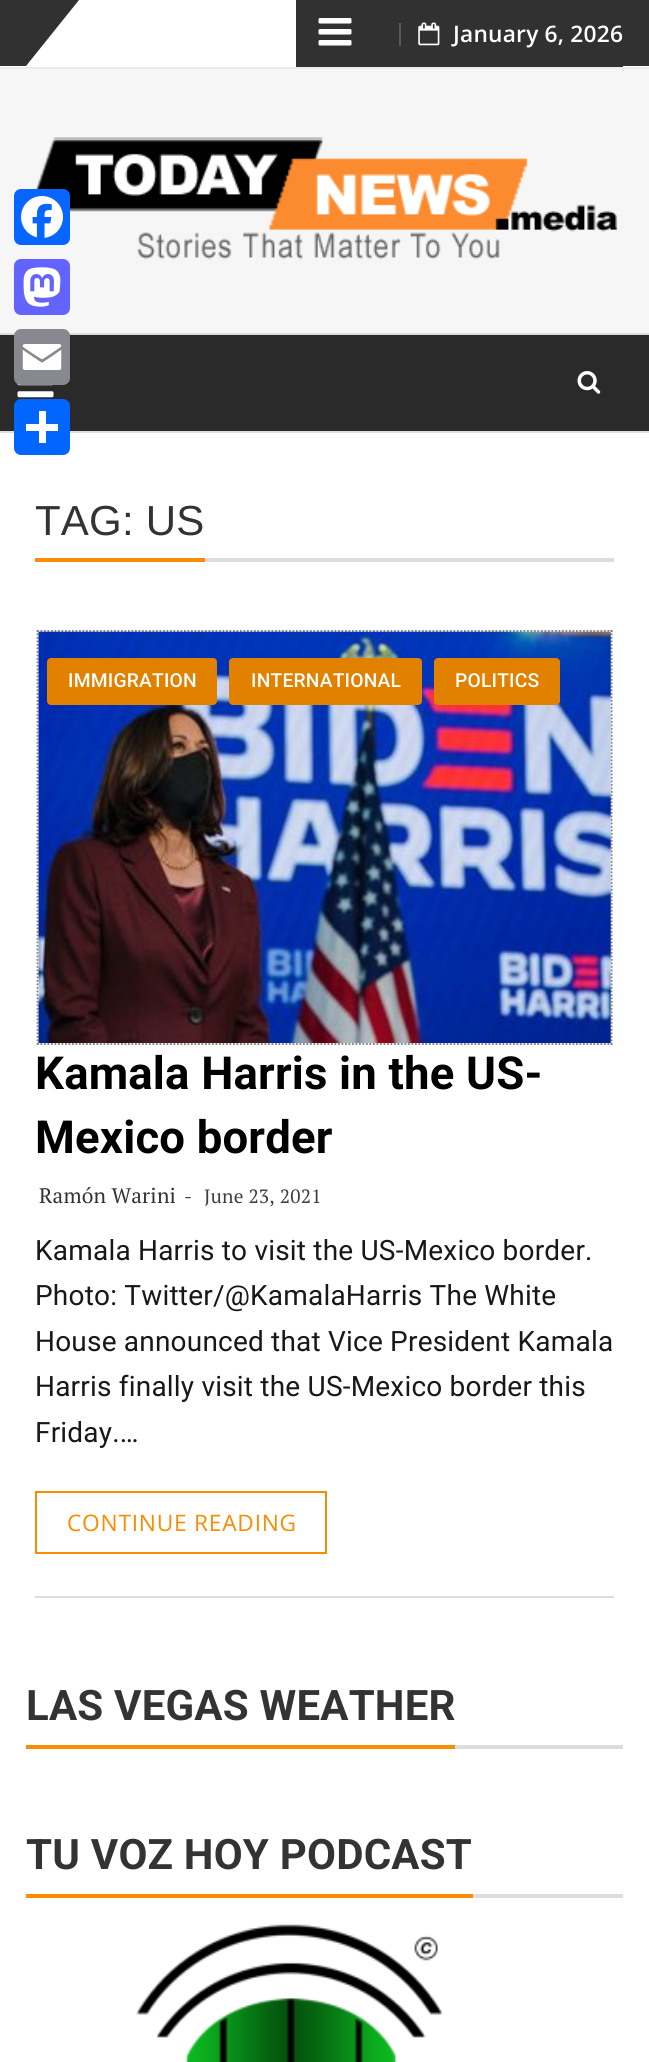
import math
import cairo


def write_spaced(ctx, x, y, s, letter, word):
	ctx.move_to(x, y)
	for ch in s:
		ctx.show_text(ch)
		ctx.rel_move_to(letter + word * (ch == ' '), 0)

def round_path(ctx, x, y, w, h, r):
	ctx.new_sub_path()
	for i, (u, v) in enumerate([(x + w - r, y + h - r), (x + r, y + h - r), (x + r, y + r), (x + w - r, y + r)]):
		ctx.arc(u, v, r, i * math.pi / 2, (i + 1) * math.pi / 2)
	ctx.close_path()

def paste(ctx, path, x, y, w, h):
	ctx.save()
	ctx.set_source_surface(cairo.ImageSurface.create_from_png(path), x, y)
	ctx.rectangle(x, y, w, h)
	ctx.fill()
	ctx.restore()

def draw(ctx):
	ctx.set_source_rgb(1, 1, 1)
	ctx.paint()
	ctx.set_source_rgb(0.918, 0.918, 0.918)
	ctx.rectangle(0, 67, 649, 2)
	ctx.fill()
	ctx.set_source_rgb(0.192, 0.192, 0.192)
	ctx.new_path()
	ctx.move_to(0, 0)
	ctx.line_to(79, 0)
	ctx.line_to(26, 66)
	ctx.line_to(0, 66)
	ctx.close_path()
	ctx.fill()
	ctx.rectangle(296, 0, 327, 67)
	ctx.fill()
	ctx.new_path()
	ctx.move_to(649, 66)
	ctx.line_to(296, 66)
	ctx.line_to(348, 0)
	ctx.line_to(649, 0)
	ctx.close_path()
	ctx.fill()
	paste(ctx, 'media/1.png', 318, 18, 34, 28)
	ctx.set_source_rgb(0.349, 0.349, 0.349)
	ctx.rectangle(399, 23, 2, 23)
	ctx.fill()
	paste(ctx, 'media/2.png', 418, 22, 22, 24)
	ctx.select_font_face('Open Sans SemiBold')
	ctx.set_font_size(22.75)
	ctx.set_source_rgb(1, 1, 1)
	write_spaced(ctx, 453, 42, 'January 6, 2026', 0.2, 0)
	ctx.set_source_rgb(0.961, 0.961, 0.961)
	ctx.rectangle(0, 69, 649, 264)
	ctx.fill()
	paste(ctx, 'media/3.png', 35, 137, 583, 123)
	ctx.set_source_rgb(0.165, 0.165, 0.165)
	ctx.rectangle(0, 335, 649, 96)
	ctx.fill()
	ctx.set_source_rgb(0.867, 0.867, 0.867)
	ctx.rectangle(0, 333, 649, 2)
	ctx.rectangle(0, 431, 649, 2)
	ctx.fill()
	paste(ctx, 'media/4.png', 17, 383, 37, 15)
	paste(ctx, 'media/5.png', 577, 371, 24, 23)
	ctx.select_font_face('Liberation Sans')
	ctx.set_font_size(42)
	ctx.set_source_rgb(0.2, 0.2, 0.2)
	write_spaced(ctx, 35, 535, 'TAG: US', 0.2, 0)
	ctx.set_source_rgb(0.973, 0.549, 0)
	ctx.rectangle(35, 558, 170, 4)
	ctx.fill()
	ctx.set_source_rgb(0.867, 0.867, 0.867)
	ctx.rectangle(205, 558, 409, 4)
	ctx.fill()
	ctx.set_source_rgb(0.957, 0.957, 0.957)
	ctx.rectangle(37, 630, 576, 415)
	ctx.fill()
	ctx.new_path()
	ctx.move_to(37, 631)
	ctx.line_to(612.5, 631)
	ctx.set_source_rgb(0.502, 0.502, 0.502)
	ctx.set_line_width(1.8)
	ctx.set_dash([1.75, 1.75])
	ctx.stroke()
	ctx.new_path()
	ctx.move_to(611.5, 630)
	ctx.line_to(611.5, 1045)
	ctx.stroke()
	ctx.new_path()
	ctx.move_to(37, 1044)
	ctx.line_to(612.5, 1044)
	ctx.stroke()
	ctx.new_path()
	ctx.move_to(37.5, 630)
	ctx.line_to(37.5, 1045)
	ctx.stroke()
	paste(ctx, 'media/6.png', 38, 631, 573, 412)
	ctx.set_source_rgb(0.886, 0.502, 0)
	round_path(ctx, 47, 658, 170, 47, 4)
	ctx.fill()
	ctx.select_font_face('Roboto Medium')
	ctx.set_font_size(19.25)
	ctx.set_source_rgb(1, 1, 1)
	write_spaced(ctx, 68, 687, 'IMMIGRATION', 0.2, 0)
	ctx.set_source_rgb(0.886, 0.502, 0)
	round_path(ctx, 229, 658, 193, 47, 4)
	ctx.fill()
	ctx.set_source_rgb(1, 1, 1)
	write_spaced(ctx, 251, 687, 'INTERNATIONAL', 0.2, 0)
	ctx.set_source_rgb(0.886, 0.502, 0)
	round_path(ctx, 434, 658, 126, 47, 4)
	ctx.fill()
	ctx.set_source_rgb(1, 1, 1)
	write_spaced(ctx, 455, 687, 'POLITICS', 0.2, 0)
	ctx.select_font_face('Roboto', cairo.FONT_SLANT_NORMAL, cairo.FONT_WEIGHT_BOLD)
	ctx.set_font_size(45.5)
	ctx.set_source_rgb(0, 0, 0)
	write_spaced(ctx, 35, 1089, 'Kamala Harris in the US-', 0.2, 0)
	write_spaced(ctx, 35, 1153, 'Mexico border', 0.2, 0)
	ctx.select_font_face('PT Serif')
	ctx.set_font_size(21)
	ctx.set_source_rgb(0.2, 0.2, 0.2)
	write_spaced(ctx, 39, 1203, 'Ramón Warini', 0.2, 0)
	ctx.set_font_size(19.25)
	ctx.set_source_rgb(0.251, 0.251, 0.251)
	write_spaced(ctx, 184, 1203, '-', 0.2, 0)
	write_spaced(ctx, 204, 1203, 'June 23, 2021', 0.2, 0)
	ctx.select_font_face('Roboto')
	ctx.set_font_size(28)
	ctx.set_source_rgb(0.094, 0.094, 0.094)
	for x, y, s in [
		(35, 1260, 'Kamala Harris to visit the US-Mexico border.'),
		(35, 1305, 'Photo: Twitter/@KamalaHarris The White'),
		(35, 1351, 'House announced that Vice President Kamala'),
		(35, 1396, 'Harris finally visit the US-Mexico border this'),
		(35, 1442, 'Friday.…'),
	]:
		write_spaced(ctx, x, y, s, 0.2, 0)
	ctx.rectangle(36, 1492, 290, 61)
	ctx.set_source_rgb(0.973, 0.549, 0)
	ctx.set_line_width(2)
	ctx.set_dash([])
	ctx.stroke()
	ctx.select_font_face('Open Sans')
	ctx.set_font_size(22.75)
	write_spaced(ctx, 67, 1531, 'CONTINUE READING', 0.75, 0)
	ctx.set_source_rgb(0.867, 0.867, 0.867)
	ctx.rectangle(35, 1596, 579, 2)
	ctx.fill()
	ctx.select_font_face('Roboto', cairo.FONT_SLANT_NORMAL, cairo.FONT_WEIGHT_BOLD)
	ctx.set_font_size(42)
	ctx.set_source_rgb(0.2, 0.2, 0.2)
	write_spaced(ctx, 26, 1720, 'LAS VEGAS WEATHER', 0.2, 0)
	ctx.set_source_rgb(0.973, 0.549, 0)
	ctx.rectangle(26, 1745, 429, 4)
	ctx.fill()
	ctx.set_source_rgb(0.867, 0.867, 0.867)
	ctx.rectangle(455, 1745, 168, 4)
	ctx.fill()
	ctx.set_source_rgb(0.2, 0.2, 0.2)
	write_spaced(ctx, 26, 1869, 'TU VOZ HOY PODCAST', 0.2, 0)
	ctx.set_source_rgb(0.973, 0.549, 0)
	ctx.rectangle(26, 1894, 447, 4)
	ctx.fill()
	ctx.set_source_rgb(0.867, 0.867, 0.867)
	ctx.rectangle(473, 1894, 150, 4)
	ctx.fill()
	paste(ctx, 'media/7.png', 136, 1924, 307, 138)
	ctx.set_source_rgb(0.031, 0.4, 1)
	round_path(ctx, 14, 189, 56, 56, 7)
	ctx.fill()
	paste(ctx, 'media/8.png', 21, 196, 42, 42)
	ctx.set_source_rgb(0.388, 0.392, 1)
	round_path(ctx, 14, 259, 56, 56, 7)
	ctx.fill()
	paste(ctx, 'media/9.png', 23, 267, 38, 40)
	ctx.set_source_rgb(0.533, 0.537, 0.565)
	round_path(ctx, 14, 329, 56, 56, 7)
	ctx.fill()
	paste(ctx, 'media/10.png', 22, 344, 40, 26)
	ctx.set_source_rgb(0.004, 0.4, 1)
	round_path(ctx, 14, 399, 56, 56, 7)
	ctx.fill()
	ctx.set_source_rgb(1, 1, 1)
	ctx.rectangle(39, 411, 7, 32)
	ctx.fill()
	ctx.rectangle(26, 424, 32, 7)
	ctx.fill()


surface = cairo.ImageSurface(cairo.FORMAT_RGB24, 649, 2062)
ctx = cairo.Context(surface)
options = cairo.FontOptions()
options.set_hint_metrics(cairo.HINT_METRICS_OFF)
options.set_hint_style(cairo.HINT_STYLE_NONE)
ctx.set_font_options(options)
ctx.set_miter_limit(4)
draw(ctx)
surface.write_to_png('image.png')
